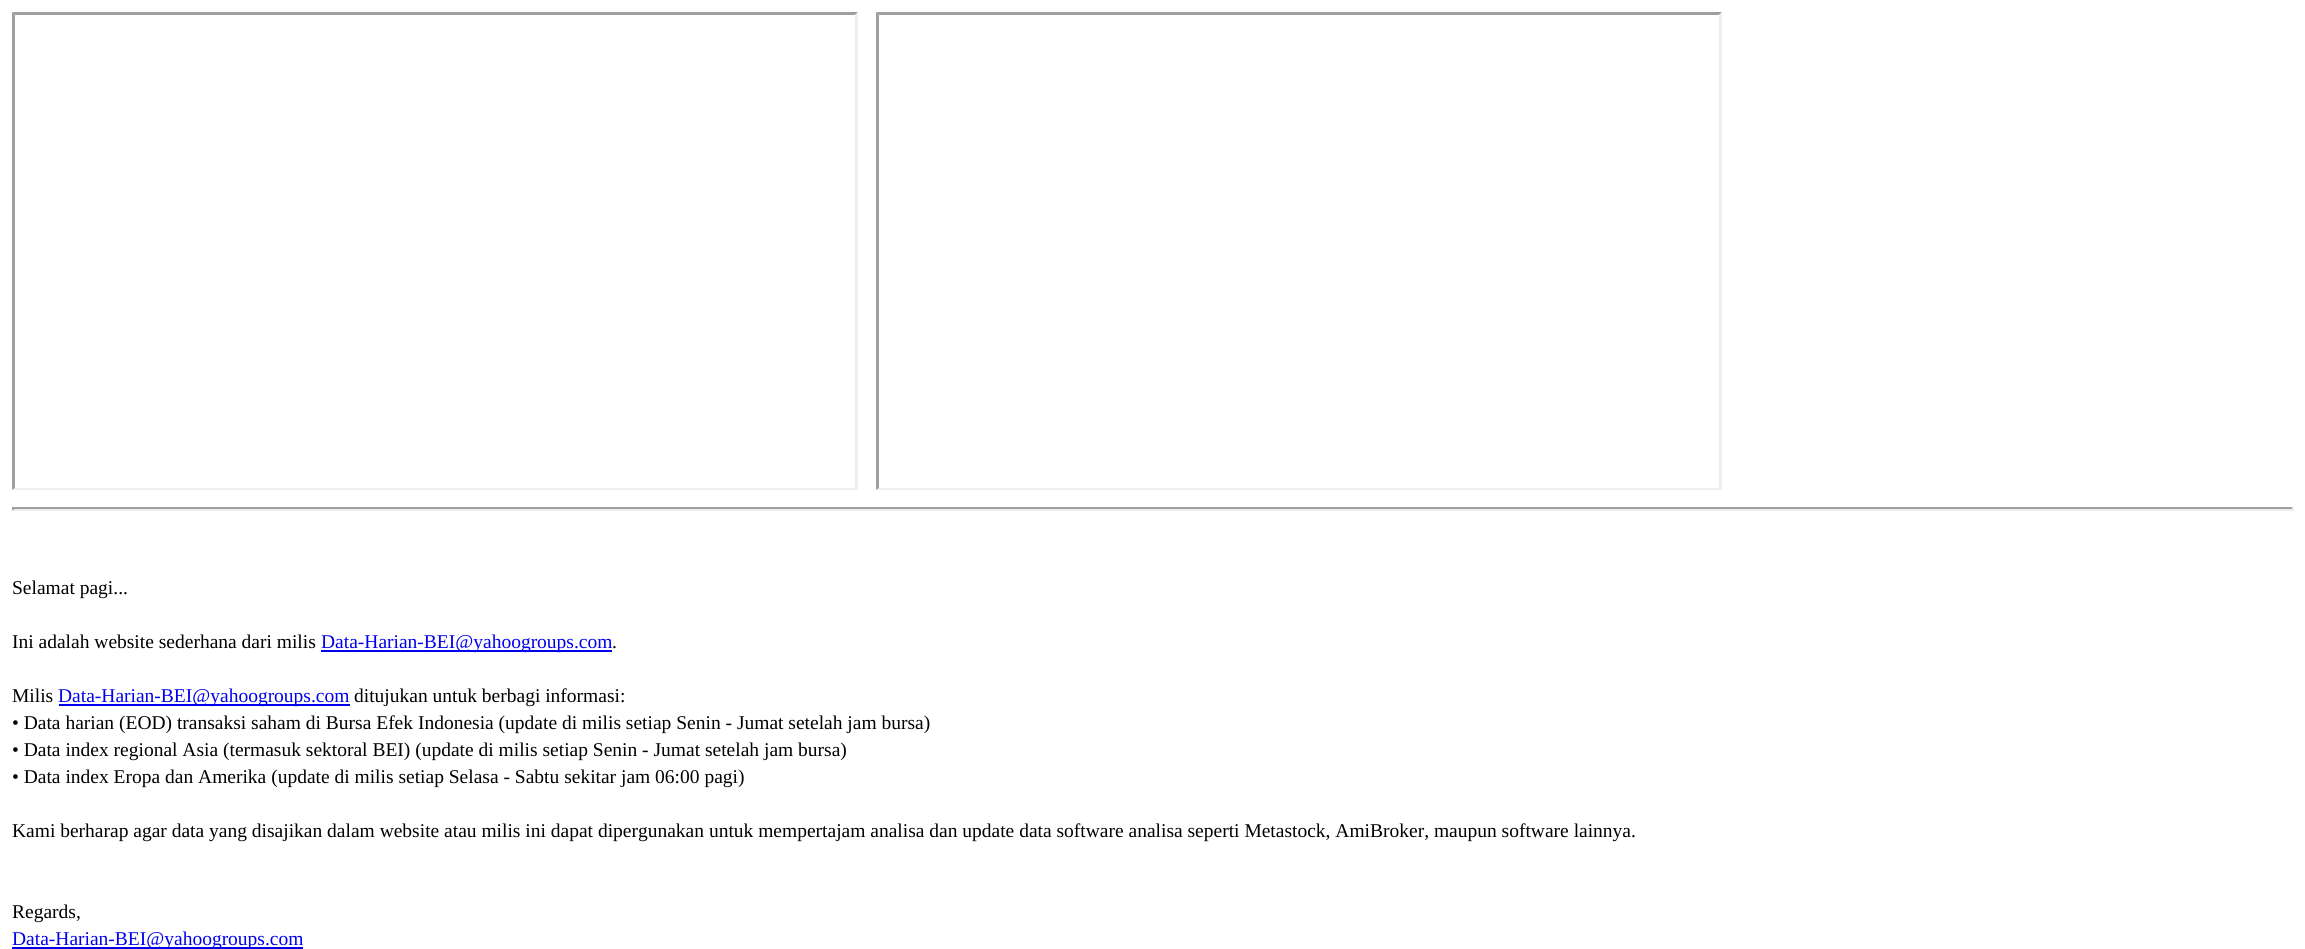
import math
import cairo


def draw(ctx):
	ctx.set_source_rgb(1, 1, 1)
	ctx.paint()
	ctx.set_source_rgb(0.624, 0.624, 0.624)
	ctx.new_path()
	ctx.move_to(12, 12)
	ctx.line_to(858, 12)
	ctx.line_to(855, 15)
	ctx.line_to(15, 15)
	ctx.close_path()
	ctx.fill()
	ctx.set_source_rgb(0.933, 0.933, 0.933)
	ctx.new_path()
	ctx.move_to(858, 12)
	ctx.line_to(858, 490)
	ctx.line_to(855, 488)
	ctx.line_to(855, 15)
	ctx.close_path()
	ctx.fill()
	ctx.new_path()
	ctx.move_to(858, 490)
	ctx.line_to(12, 490)
	ctx.line_to(15, 488)
	ctx.line_to(855, 488)
	ctx.close_path()
	ctx.fill()
	ctx.set_source_rgb(0.624, 0.624, 0.624)
	ctx.new_path()
	ctx.move_to(12, 490)
	ctx.line_to(12, 12)
	ctx.line_to(15, 15)
	ctx.line_to(15, 488)
	ctx.close_path()
	ctx.fill()
	ctx.new_path()
	ctx.move_to(876, 12)
	ctx.line_to(1722, 12)
	ctx.line_to(1719, 15)
	ctx.line_to(879, 15)
	ctx.close_path()
	ctx.fill()
	ctx.set_source_rgb(0.933, 0.933, 0.933)
	ctx.new_path()
	ctx.move_to(1722, 12)
	ctx.line_to(1722, 490)
	ctx.line_to(1719, 488)
	ctx.line_to(1719, 15)
	ctx.close_path()
	ctx.fill()
	ctx.new_path()
	ctx.move_to(1722, 490)
	ctx.line_to(876, 490)
	ctx.line_to(879, 488)
	ctx.line_to(1719, 488)
	ctx.close_path()
	ctx.fill()
	ctx.set_source_rgb(0.624, 0.624, 0.624)
	ctx.new_path()
	ctx.move_to(876, 490)
	ctx.line_to(876, 12)
	ctx.line_to(879, 15)
	ctx.line_to(879, 488)
	ctx.close_path()
	ctx.fill()
	ctx.rectangle(12, 507, 2282, 2)
	ctx.fill()
	ctx.set_source_rgb(0.933, 0.933, 0.933)
	ctx.rectangle(2292, 507, 2, 3)
	ctx.rectangle(12, 509, 2282, 2)
	ctx.fill()
	ctx.set_source_rgb(0.624, 0.624, 0.624)
	ctx.rectangle(12, 507, 2, 3)
	ctx.fill()
	ctx.select_font_face('Liberation Serif')
	ctx.set_font_size(19.5)
	ctx.set_source_rgb(0, 0, 0)
	ctx.move_to(12, 594)
	ctx.show_text('Selamat pagi...')
	ctx.move_to(12, 648)
	ctx.show_text('Ini adalah website sederhana dari milis')
	ctx.set_source_rgb(0, 0, 0.933)
	ctx.rectangle(321, 650, 291, 2)
	ctx.fill()
	ctx.move_to(321, 648)
	ctx.show_text('Data-Harian-BEI@yahoogroups.com')
	ctx.set_source_rgb(0, 0, 0)
	ctx.move_to(612, 648)
	ctx.show_text('.')
	ctx.move_to(12, 702)
	ctx.show_text('Milis')
	ctx.set_source_rgb(0, 0, 0.933)
	ctx.rectangle(59, 704, 291, 2)
	ctx.fill()
	ctx.move_to(58, 702)
	ctx.show_text('Data-Harian-BEI@yahoogroups.com')
	ctx.set_source_rgb(0, 0, 0)
	for x, y, s in [
		(354, 702, 'ditujukan untuk berbagi informasi:'),
		(12, 729, '• Data harian (EOD) transaksi saham di Bursa Efek Indonesia (update di milis setiap Senin - Jumat setelah jam bursa)'),
		(12, 756, '• Data index regional Asia (termasuk sektoral BEI) (update di milis setiap Senin - Jumat setelah jam bursa)'),
		(12, 783, '• Data index Eropa dan Amerika (update di milis setiap Selasa - Sabtu sekitar jam 06:00 pagi)'),
		(12, 837, 'Kami berharap agar data yang disajikan dalam website atau milis ini dapat dipergunakan untuk mempertajam analisa dan update data software analisa seperti Metastock, AmiBroker, maupun software lainnya.'),
		(12, 918, 'Regards,'),
	]:
		ctx.move_to(x, y)
		ctx.show_text(s)
	ctx.set_source_rgb(0, 0, 0.933)
	ctx.rectangle(12, 947, 291, 2)
	ctx.fill()
	ctx.move_to(12, 945)
	ctx.show_text('Data-Harian-BEI@yahoogroups.com')


surface = cairo.ImageSurface(cairo.FORMAT_RGB24, 2305, 949)
ctx = cairo.Context(surface)
options = cairo.FontOptions()
options.set_hint_metrics(cairo.HINT_METRICS_OFF)
options.set_hint_style(cairo.HINT_STYLE_NONE)
ctx.set_font_options(options)
ctx.set_miter_limit(4)
draw(ctx)
surface.write_to_png('image.png')
